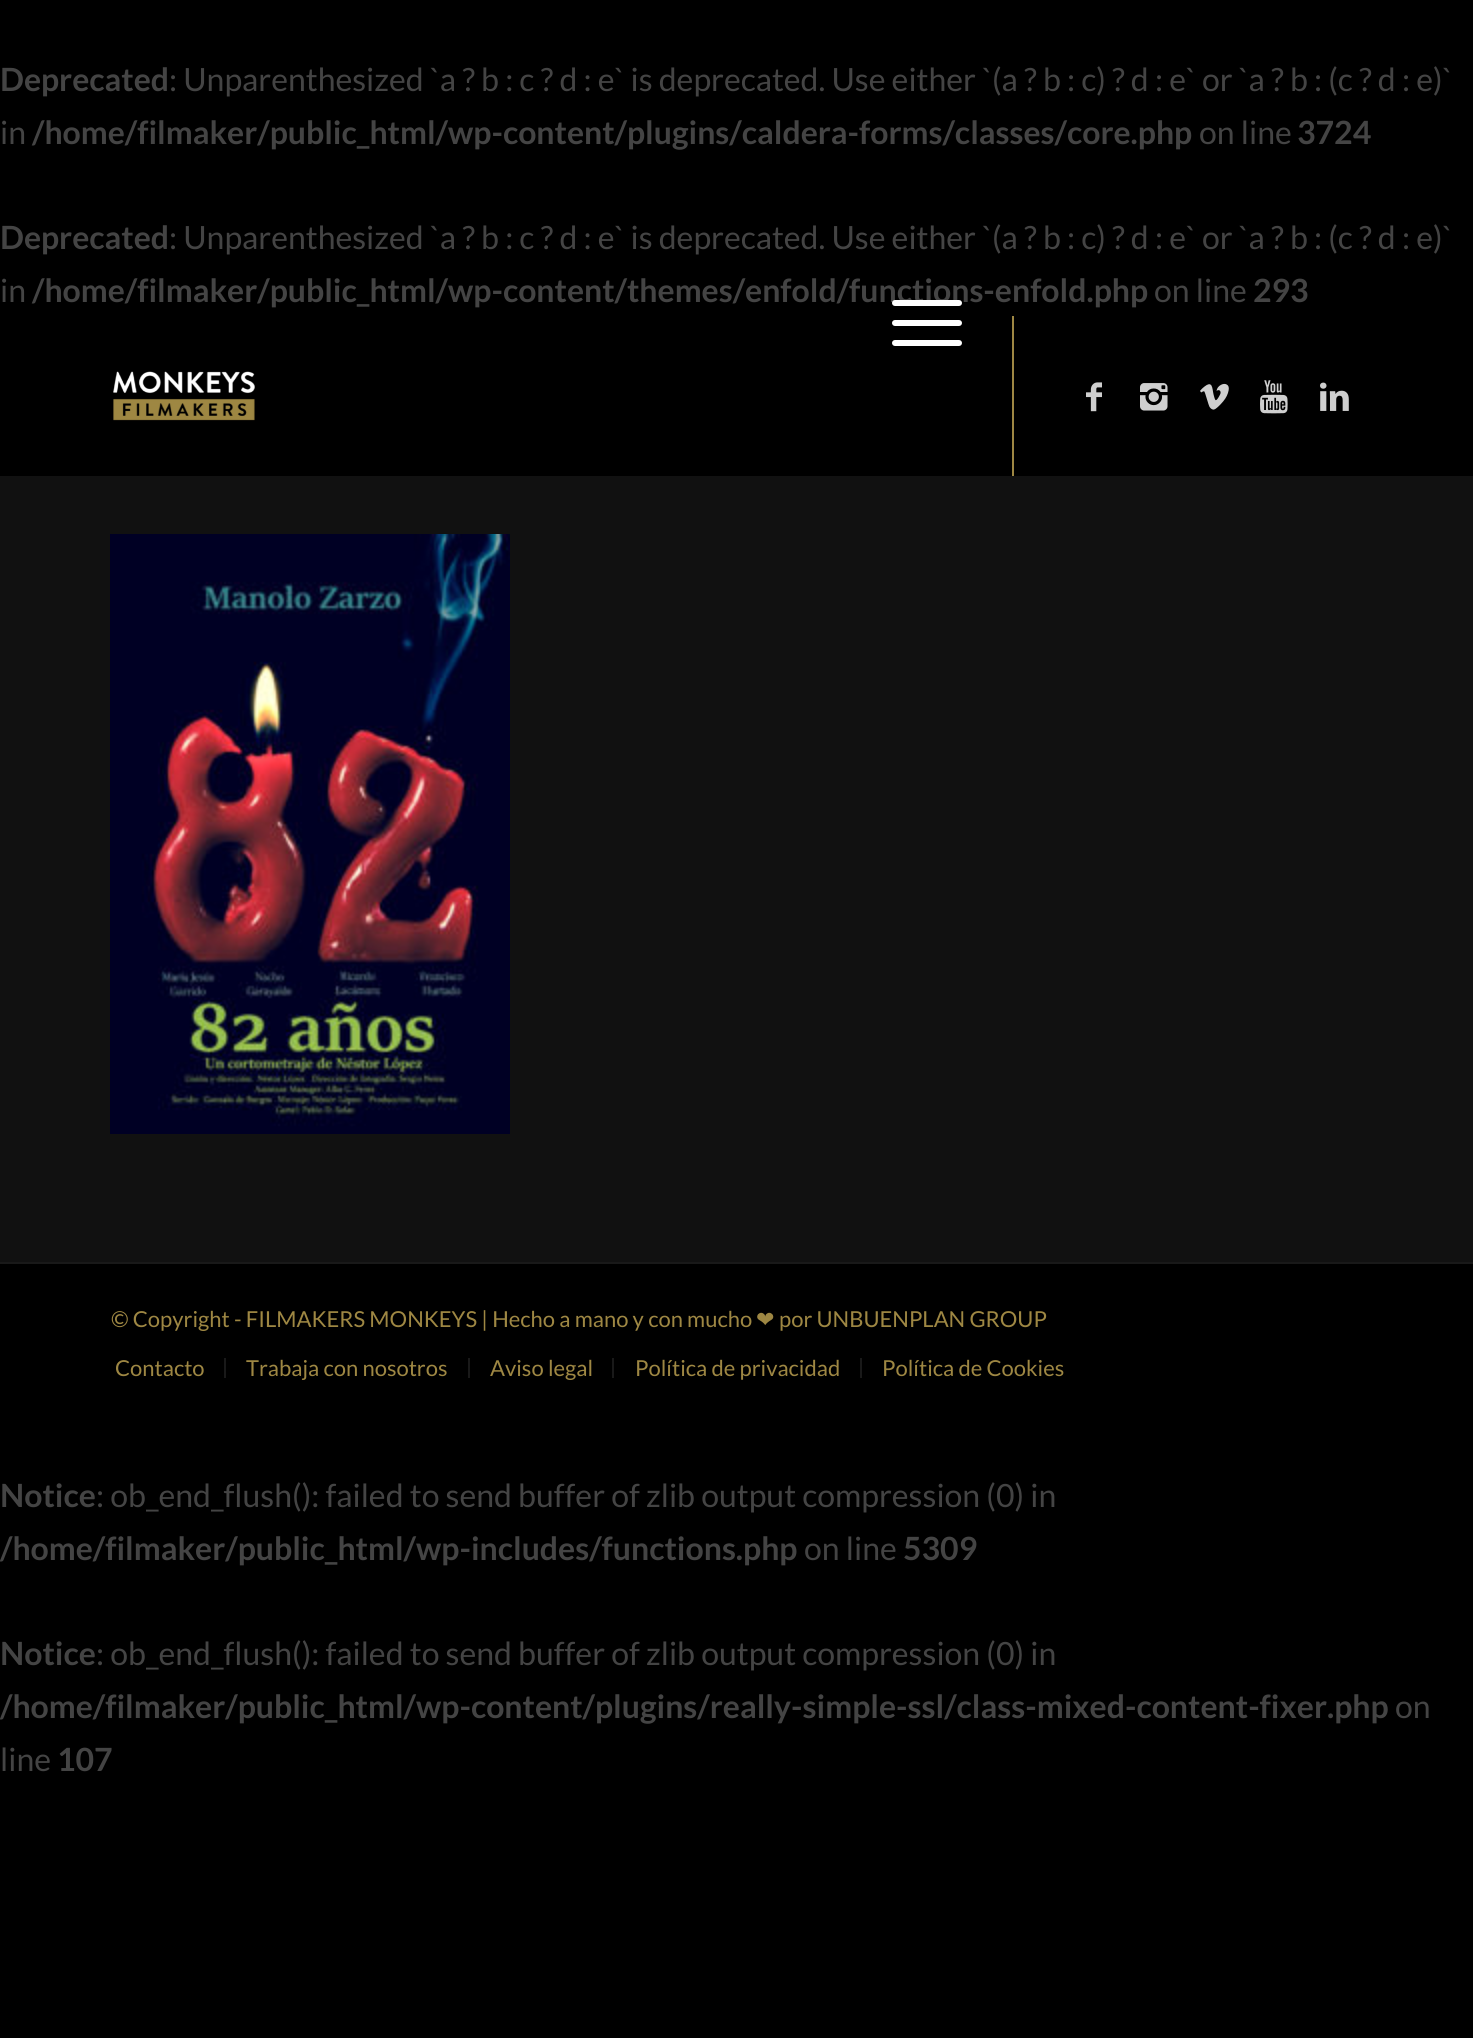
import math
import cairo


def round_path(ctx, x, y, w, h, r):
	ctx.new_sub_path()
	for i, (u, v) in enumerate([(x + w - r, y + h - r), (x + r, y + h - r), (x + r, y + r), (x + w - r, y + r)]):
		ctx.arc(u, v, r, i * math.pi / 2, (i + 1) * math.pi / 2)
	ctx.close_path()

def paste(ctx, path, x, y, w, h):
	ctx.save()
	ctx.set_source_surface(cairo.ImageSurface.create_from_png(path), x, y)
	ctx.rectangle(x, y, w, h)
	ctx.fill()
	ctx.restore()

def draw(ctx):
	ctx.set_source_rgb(0, 0, 0)
	ctx.paint()
	ctx.select_font_face('Lato', cairo.FONT_SLANT_NORMAL, cairo.FONT_WEIGHT_BOLD)
	ctx.set_font_size(32)
	ctx.set_source_rgb(0.267, 0.267, 0.267)
	ctx.move_to(0, 91)
	ctx.show_text('Deprecated')
	ctx.select_font_face('Lato')
	ctx.move_to(169, 91)
	ctx.show_text(': Unparenthesized `a ? b : c ? d : e` is deprecated. Use either `(a ? b : c) ? d : e` or `a ? b : (c ? d : e)`')
	ctx.move_to(0, 144)
	ctx.show_text('in')
	ctx.select_font_face('Lato', cairo.FONT_SLANT_NORMAL, cairo.FONT_WEIGHT_BOLD)
	ctx.move_to(32, 144)
	ctx.show_text('/home/filmaker/public_html/wp-content/plugins/caldera-forms/classes/core.php')
	ctx.select_font_face('Lato')
	ctx.move_to(1199, 144)
	ctx.show_text('on line')
	ctx.select_font_face('Lato', cairo.FONT_SLANT_NORMAL, cairo.FONT_WEIGHT_BOLD)
	ctx.move_to(1297, 144)
	ctx.show_text('3724')
	ctx.move_to(0, 249)
	ctx.show_text('Deprecated')
	ctx.select_font_face('Lato')
	ctx.move_to(169, 249)
	ctx.show_text(': Unparenthesized `a ? b : c ? d : e` is deprecated. Use either `(a ? b : c) ? d : e` or `a ? b : (c ? d : e)`')
	ctx.move_to(0, 302)
	ctx.show_text('in')
	ctx.select_font_face('Lato', cairo.FONT_SLANT_NORMAL, cairo.FONT_WEIGHT_BOLD)
	ctx.move_to(32, 302)
	ctx.show_text('/home/filmaker/public_html/wp-content/themes/enfold/functions-enfold.php')
	ctx.select_font_face('Lato')
	ctx.move_to(1154, 302)
	ctx.show_text('on line')
	ctx.select_font_face('Lato', cairo.FONT_SLANT_NORMAL, cairo.FONT_WEIGHT_BOLD)
	ctx.move_to(1253, 302)
	ctx.show_text('293')
	paste(ctx, 'media/1.png', 113, 371, 142, 50)
	ctx.set_source_rgb(0.62, 0.529, 0.263)
	ctx.rectangle(1012, 316, 2, 160)
	ctx.fill()
	ctx.set_source_rgb(1, 1, 1)
	round_path(ctx, 892, 320, 70, 6, 3)
	ctx.fill()
	round_path(ctx, 892, 300, 70, 6, 3)
	ctx.fill()
	round_path(ctx, 892, 340, 70, 6, 3)
	ctx.fill()
	paste(ctx, 'media/2.png', 1086, 382, 16, 30)
	paste(ctx, 'media/3.png', 1140, 383, 28, 28)
	paste(ctx, 'media/4.png', 1200, 383, 29, 27)
	paste(ctx, 'media/5.png', 1260, 380, 28, 34)
	paste(ctx, 'media/6.png', 1320, 382, 29, 29)
	ctx.set_source_rgb(0.067, 0.067, 0.067)
	ctx.rectangle(0, 476, 1473, 786)
	ctx.fill()
	paste(ctx, 'media/7.png', 110, 534, 400, 600)
	ctx.set_source_rgb(0.098, 0.098, 0.098)
	ctx.rectangle(0, 1262, 1473, 2)
	ctx.fill()
	ctx.select_font_face('Lato')
	ctx.set_font_size(22)
	ctx.set_source_rgb(0.62, 0.529, 0.263)
	ctx.move_to(111, 1327)
	ctx.show_text('© Copyright - FILMAKERS MONKEYS | Hecho a mano y con mucho')
	ctx.select_font_face('DejaVu Sans')
	ctx.move_to(756, 1327)
	ctx.show_text('❤')
	ctx.select_font_face('Lato')
	ctx.move_to(779, 1327)
	ctx.show_text('por UNBUENPLAN GROUP')
	ctx.move_to(115, 1376)
	ctx.show_text('Contacto')
	ctx.set_source_rgb(0.098, 0.098, 0.098)
	ctx.rectangle(224, 1358, 2, 20)
	ctx.fill()
	ctx.set_source_rgb(0.62, 0.529, 0.263)
	ctx.move_to(246, 1376)
	ctx.show_text('Trabaja con nosotros')
	ctx.set_source_rgb(0.098, 0.098, 0.098)
	ctx.rectangle(468, 1358, 2, 20)
	ctx.fill()
	ctx.set_source_rgb(0.62, 0.529, 0.263)
	ctx.move_to(490, 1376)
	ctx.show_text('Aviso legal')
	ctx.set_source_rgb(0.098, 0.098, 0.098)
	ctx.rectangle(612, 1358, 2, 20)
	ctx.fill()
	ctx.set_source_rgb(0.62, 0.529, 0.263)
	ctx.move_to(635, 1376)
	ctx.show_text('Política de privacidad')
	ctx.set_source_rgb(0.098, 0.098, 0.098)
	ctx.rectangle(860, 1358, 2, 20)
	ctx.fill()
	ctx.set_source_rgb(0.62, 0.529, 0.263)
	ctx.move_to(882, 1376)
	ctx.show_text('Política de Cookies')
	ctx.select_font_face('Lato', cairo.FONT_SLANT_NORMAL, cairo.FONT_WEIGHT_BOLD)
	ctx.set_font_size(32)
	ctx.set_source_rgb(0.267, 0.267, 0.267)
	ctx.move_to(0, 1507)
	ctx.show_text('Notice')
	ctx.select_font_face('Lato')
	ctx.move_to(96, 1507)
	ctx.show_text(': ob_end_flush(): failed to send buffer of zlib output compression (0) in')
	ctx.select_font_face('Lato', cairo.FONT_SLANT_NORMAL, cairo.FONT_WEIGHT_BOLD)
	ctx.move_to(0, 1560)
	ctx.show_text('/home/filmaker/public_html/wp-includes/functions.php')
	ctx.select_font_face('Lato')
	ctx.move_to(804, 1560)
	ctx.show_text('on line')
	ctx.select_font_face('Lato', cairo.FONT_SLANT_NORMAL, cairo.FONT_WEIGHT_BOLD)
	ctx.move_to(903, 1560)
	ctx.show_text('5309')
	ctx.move_to(0, 1665)
	ctx.show_text('Notice')
	ctx.select_font_face('Lato')
	ctx.move_to(96, 1665)
	ctx.show_text(': ob_end_flush(): failed to send buffer of zlib output compression (0) in')
	ctx.select_font_face('Lato', cairo.FONT_SLANT_NORMAL, cairo.FONT_WEIGHT_BOLD)
	ctx.move_to(0, 1718)
	ctx.show_text('/home/filmaker/public_html/wp-content/plugins/really-simple-ssl/class-mixed-content-fixer.php')
	ctx.select_font_face('Lato')
	ctx.move_to(1395, 1718)
	ctx.show_text('on')
	ctx.move_to(0, 1771)
	ctx.show_text('line')
	ctx.select_font_face('Lato', cairo.FONT_SLANT_NORMAL, cairo.FONT_WEIGHT_BOLD)
	ctx.move_to(57, 1771)
	ctx.show_text('107')


surface = cairo.ImageSurface(cairo.FORMAT_RGB24, 1473, 2038)
ctx = cairo.Context(surface)
options = cairo.FontOptions()
options.set_hint_metrics(cairo.HINT_METRICS_OFF)
options.set_hint_style(cairo.HINT_STYLE_NONE)
ctx.set_font_options(options)
ctx.set_miter_limit(4)
draw(ctx)
surface.write_to_png('image.png')
